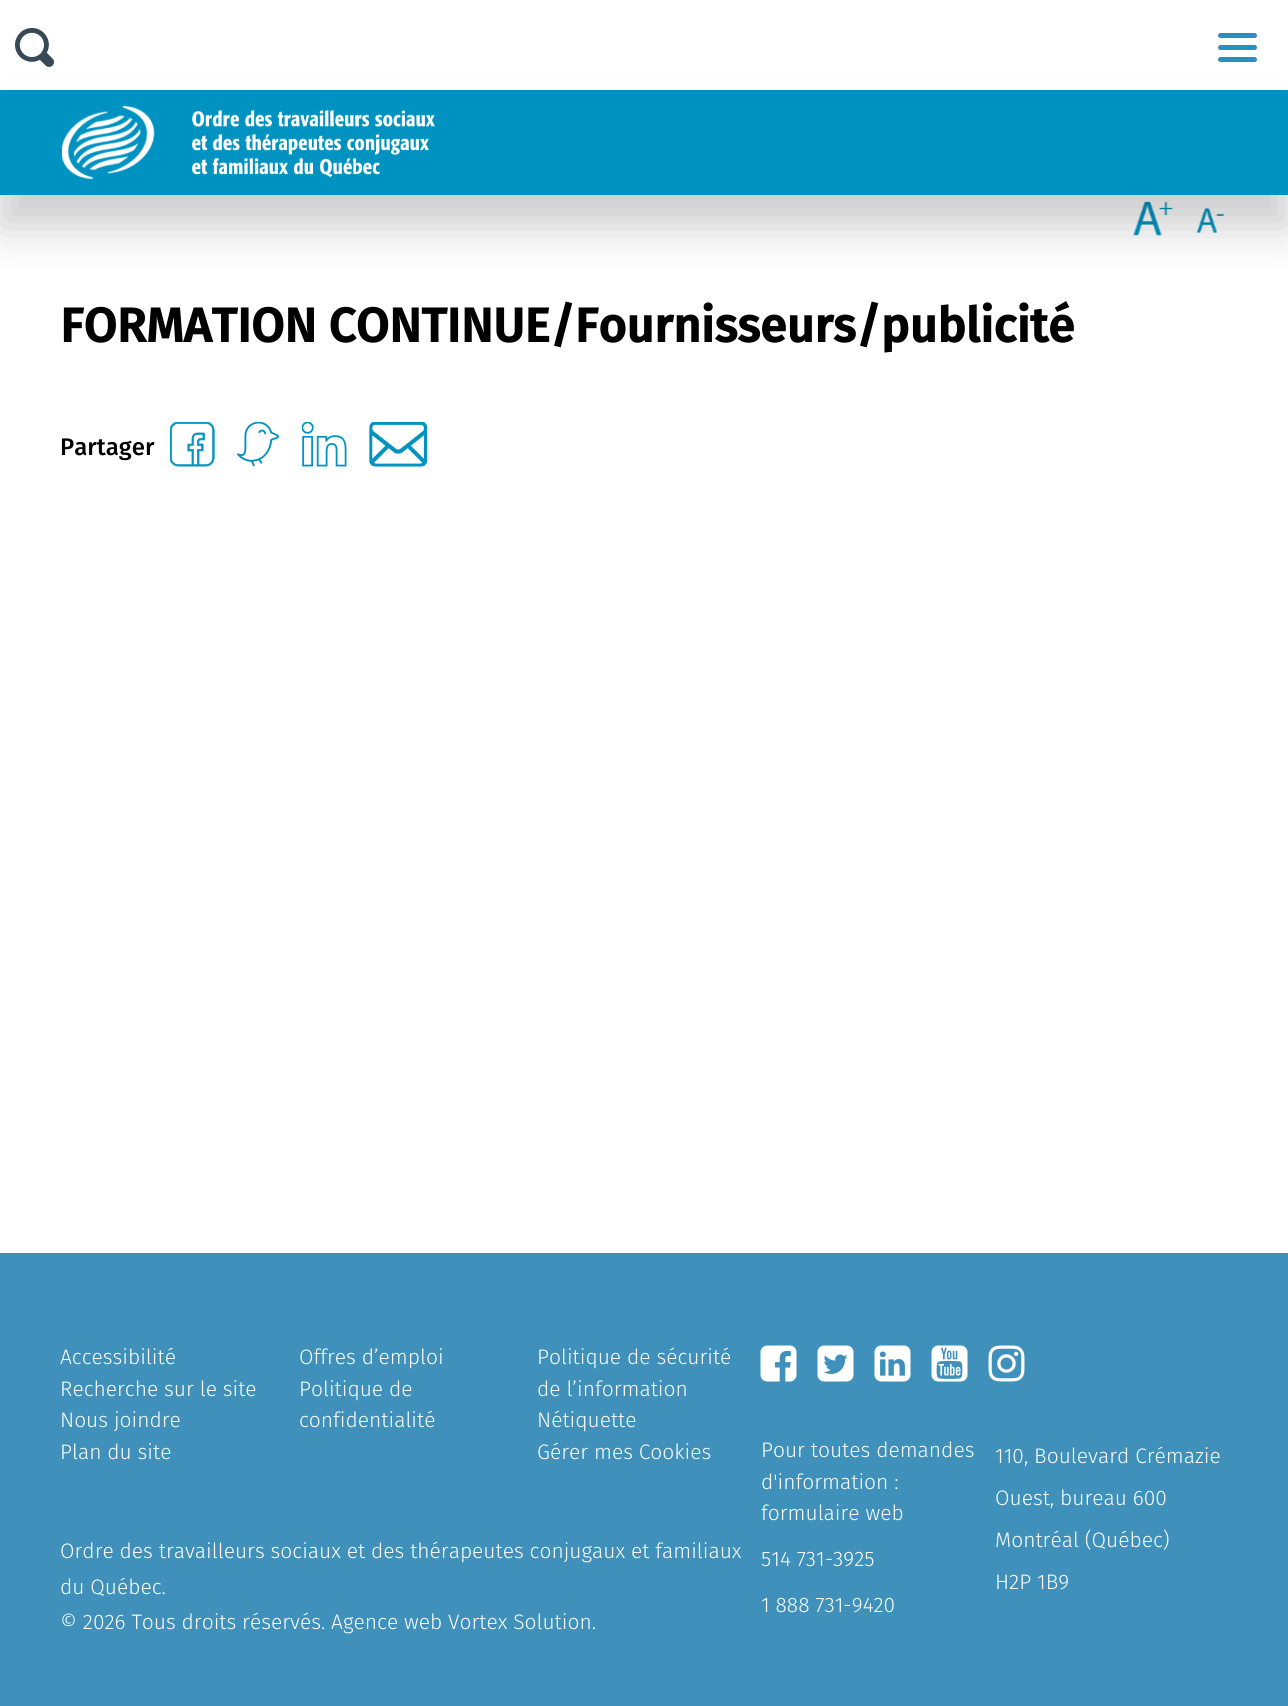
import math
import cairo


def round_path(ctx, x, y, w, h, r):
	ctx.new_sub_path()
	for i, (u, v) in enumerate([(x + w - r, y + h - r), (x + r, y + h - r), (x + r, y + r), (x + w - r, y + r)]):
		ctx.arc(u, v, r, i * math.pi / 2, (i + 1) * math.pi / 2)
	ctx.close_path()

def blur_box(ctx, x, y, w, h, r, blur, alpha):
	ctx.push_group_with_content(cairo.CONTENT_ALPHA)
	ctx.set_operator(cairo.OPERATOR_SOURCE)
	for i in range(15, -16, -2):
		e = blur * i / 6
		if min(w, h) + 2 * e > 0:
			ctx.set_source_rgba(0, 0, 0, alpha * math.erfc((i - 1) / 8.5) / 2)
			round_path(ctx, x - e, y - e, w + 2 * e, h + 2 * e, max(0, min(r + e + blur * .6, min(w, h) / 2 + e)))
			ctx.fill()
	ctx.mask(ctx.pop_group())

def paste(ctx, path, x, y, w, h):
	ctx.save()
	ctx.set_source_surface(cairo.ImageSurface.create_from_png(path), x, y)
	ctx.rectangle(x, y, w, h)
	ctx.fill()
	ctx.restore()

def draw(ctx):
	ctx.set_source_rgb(1, 1, 1)
	ctx.paint()
	paste(ctx, 'media/1.png', 15, 27, 39, 40)
	paste(ctx, 'media/3.png', 1133, 201, 40, 35)
	paste(ctx, 'media/4.png', 1196, 208, 29, 25)
	ctx.set_source_rgb(0, 0, 0)
	blur_box(ctx, 0, 122, 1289, 105, 0, 22.5, 0.2)
	ctx.set_source_rgb(0, 0.576, 0.757)
	ctx.rectangle(0, 90, 1288, 105)
	ctx.fill()
	paste(ctx, 'media/2.png', 61, 106, 374, 74)
	ctx.set_source_rgb(0.157, 0.561, 0.745)
	round_path(ctx, 1218, 45, 39, 5, 2.5)
	ctx.fill()
	round_path(ctx, 1218, 33, 39, 5, 2.5)
	ctx.fill()
	round_path(ctx, 1218, 57, 39, 5, 2.5)
	ctx.fill()
	ctx.select_font_face('Fira Sans', cairo.FONT_SLANT_NORMAL, cairo.FONT_WEIGHT_BOLD)
	ctx.set_font_size(48)
	ctx.set_source_rgb(0, 0, 0)
	ctx.move_to(60, 342)
	ctx.show_text('FORMATION CONTINUE/Fournisseurs/publicité')
	ctx.select_font_face('Fira Sans Medium')
	ctx.set_font_size(24)
	ctx.move_to(60, 455)
	ctx.show_text('Partager')
	paste(ctx, 'media/5.png', 170, 422, 45, 45)
	paste(ctx, 'media/6.png', 237, 422, 42, 45)
	paste(ctx, 'media/7.png', 302, 422, 45, 45)
	paste(ctx, 'media/8.png', 369, 422, 59, 45)
	ctx.set_source_rgb(0.247, 0.569, 0.737)
	ctx.rectangle(0, 1253, 1288, 453)
	ctx.fill()
	ctx.select_font_face('Fira Sans Light')
	ctx.set_font_size(21)
	ctx.set_source_rgb(1, 1, 1)
	for x, y, s in [
		(60, 1364, 'Accessibilité'),
		(299, 1364, 'Offres d’emploi'),
		(537, 1364, 'Politique de sécurité'),
		(537, 1396, 'de l’information'),
		(60, 1396, 'Recherche sur le site'),
		(299, 1396, 'Politique de'),
		(299, 1427, 'confidentialité'),
		(537, 1427, 'Nétiquette'),
		(60, 1427, 'Nous joindre'),
		(60, 1459, 'Plan du site'),
		(537, 1459, 'Gérer mes Cookies'),
		(60, 1558, 'Ordre des travailleurs sociaux et des thérapeutes conjugaux et familiaux'),
		(60, 1594, 'du Québec.'),
		(60, 1629, '© 2026 Tous droits réservés. Agence web Vortex Solution.'),
	]:
		ctx.move_to(x, y)
		ctx.show_text(s)
	paste(ctx, 'media/9.png', 760, 1345, 37, 37)
	paste(ctx, 'media/10.png', 817, 1345, 37, 37)
	paste(ctx, 'media/11.png', 874, 1345, 37, 37)
	paste(ctx, 'media/12.png', 931, 1345, 37, 37)
	paste(ctx, 'media/13.png', 988, 1345, 37, 37)
	for x, y, s in [
		(761, 1457, 'Pour toutes demandes'),
		(761, 1489, 'd\'information :'),
		(761, 1520, 'formulaire web'),
		(761, 1566, '514 731-3925'),
		(761, 1612, '1 888 731-9420'),
		(995, 1463, '110, Boulevard Crémazie'),
		(995, 1505, 'Ouest, bureau 600'),
		(995, 1547, 'Montréal (Québec)'),
		(995, 1589, 'H2P 1B9'),
	]:
		ctx.move_to(x, y)
		ctx.show_text(s)


surface = cairo.ImageSurface(cairo.FORMAT_RGB24, 1288, 1706)
ctx = cairo.Context(surface)
options = cairo.FontOptions()
options.set_hint_metrics(cairo.HINT_METRICS_OFF)
options.set_hint_style(cairo.HINT_STYLE_NONE)
ctx.set_font_options(options)
ctx.set_miter_limit(4)
draw(ctx)
surface.write_to_png('image.png')
